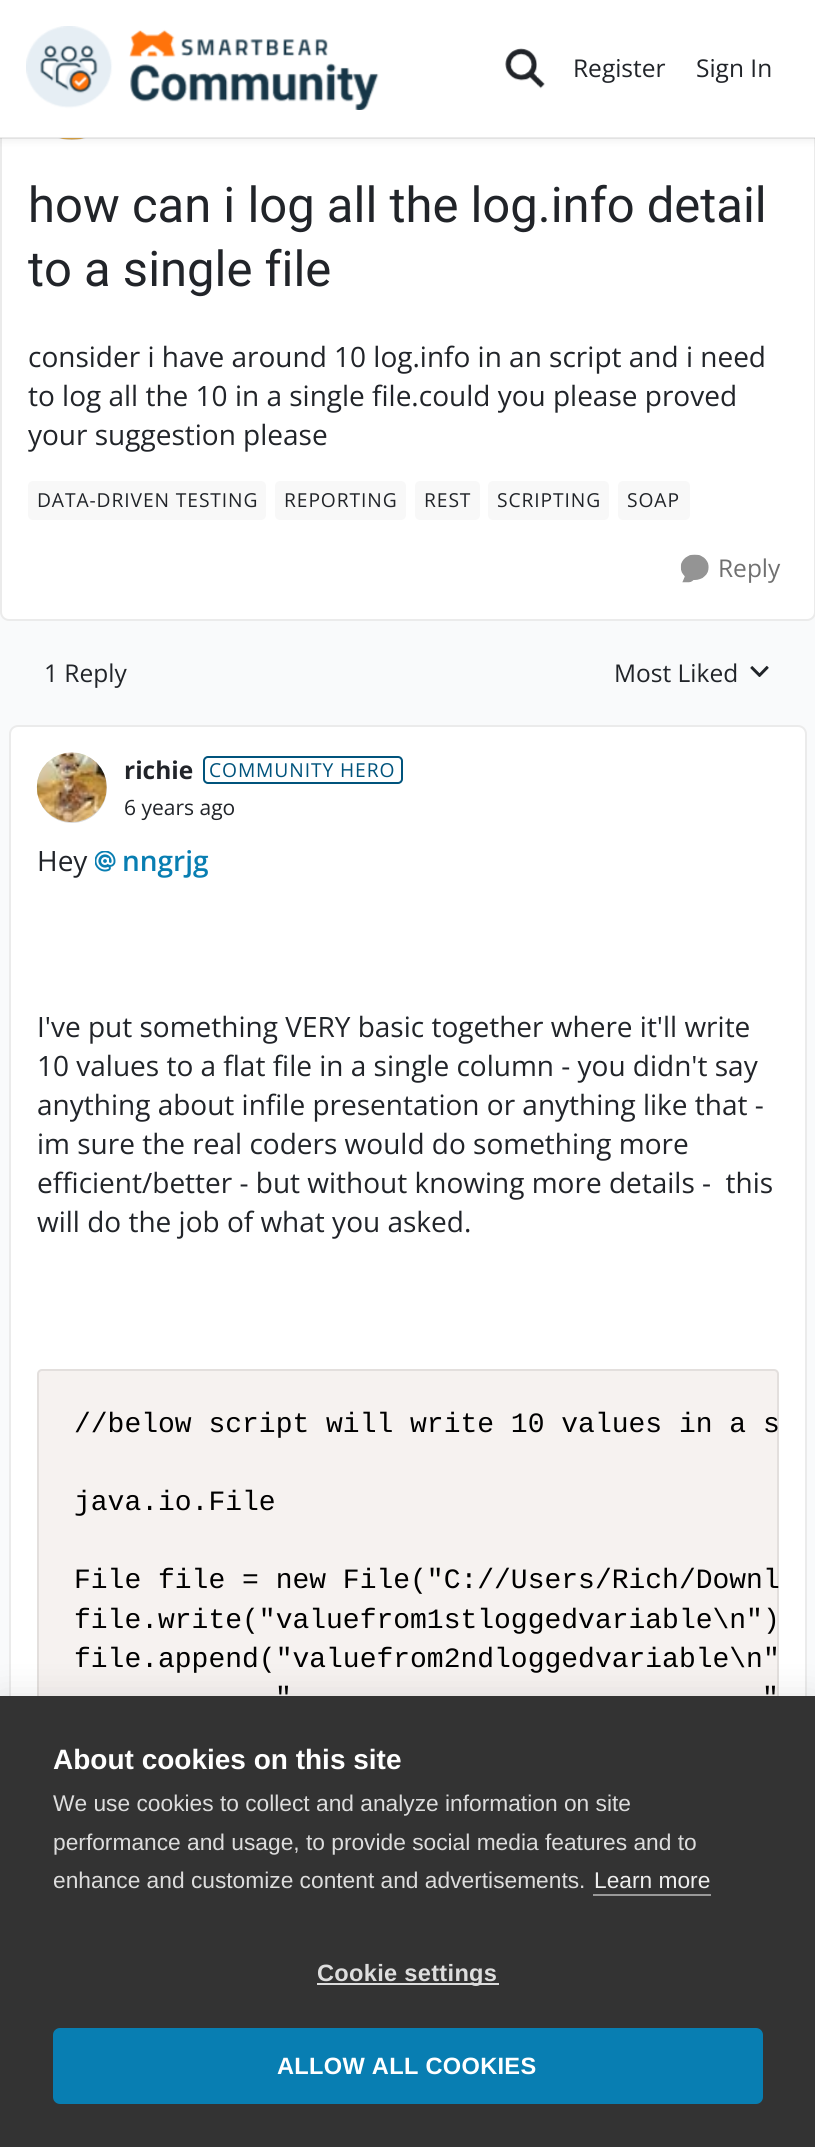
import math
import cairo


def write_spaced(ctx, x, y, s, letter, word):
	ctx.move_to(x, y)
	for ch in s:
		ctx.show_text(ch)
		ctx.rel_move_to(letter + word * (ch == ' '), 0)

def round_path(ctx, x, y, w, h, r):
	ctx.new_sub_path()
	for i, (u, v) in enumerate([(x + w - r, y + h - r), (x + r, y + h - r), (x + r, y + r), (x + w - r, y + r)]):
		ctx.arc(u, v, r, i * math.pi / 2, (i + 1) * math.pi / 2)
	ctx.close_path()

def blur_box(ctx, x, y, w, h, r, blur, alpha):
	ctx.push_group_with_content(cairo.CONTENT_ALPHA)
	ctx.set_operator(cairo.OPERATOR_SOURCE)
	for i in range(15, -16, -2):
		e = blur * i / 6
		if min(w, h) + 2 * e > 0:
			ctx.set_source_rgba(0, 0, 0, alpha * math.erfc((i - 1) / 8.5) / 2)
			round_path(ctx, x - e, y - e, w + 2 * e, h + 2 * e, max(0, min(r + e + blur * .6, min(w, h) / 2 + e)))
			ctx.fill()
	ctx.mask(ctx.pop_group())

def paste(ctx, path, x, y, w, h):
	ctx.save()
	ctx.set_source_surface(cairo.ImageSurface.create_from_png(path), x, y)
	ctx.rectangle(x, y, w, h)
	ctx.fill()
	ctx.restore()

def draw(ctx):
	ctx.set_source_rgb(0.973, 0.98, 0.984)
	ctx.paint()
	ctx.set_source_rgb(1, 1, 1)
	round_path(ctx, 0, 25, 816, 596, 9)
	ctx.fill()
	round_path(ctx, 1, 26, 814, 594, 8)
	ctx.set_source_rgba(0, 0, 0, 0.08)
	ctx.stroke()
	ctx.set_source_rgb(0.851, 0.851, 0.851)
	round_path(ctx, 28, 53, 88, 87, 43.5)
	ctx.fill()
	paste(ctx, 'media/3.png', 60, 138, 24, 2)
	ctx.set_source_rgb(0.2, 0.2, 0.2)
	blur_box(ctx, 0, 4, 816, 138, 0, 3.5, 0.06)
	ctx.set_source_rgb(1, 1, 1)
	ctx.rectangle(0, 0, 815, 138)
	ctx.fill()
	ctx.set_source_rgba(0, 0, 0, 0.08)
	ctx.rectangle(0, 137, 815, 2)
	ctx.fill()
	paste(ctx, 'media/1.png', 26, 26, 353, 84)
	paste(ctx, 'media/2.png', 505, 48, 40, 41)
	ctx.select_font_face('Open Sans')
	ctx.set_font_size(24.5)
	ctx.set_source_rgb(0.129, 0.141, 0.161)
	ctx.move_to(573, 77)
	ctx.show_text('Register')
	ctx.move_to(696, 77)
	ctx.show_text('Sign In')
	ctx.select_font_face('Roboto')
	ctx.set_font_size(49)
	ctx.move_to(28, 222)
	ctx.show_text('how can i log all the log.info detail')
	ctx.move_to(28, 286)
	ctx.show_text('to a single file')
	ctx.select_font_face('Open Sans')
	ctx.set_font_size(28)
	for x, y, s in [
		(28, 367, 'consider i have around 10 log.info in an script and i need'),
		(28, 406, 'to log all the 10 in a single file.could you please proved'),
		(28, 445, 'your suggestion please'),
	]:
		ctx.move_to(x, y)
		ctx.show_text(s)
	ctx.set_source_rgb(0.969, 0.969, 0.969)
	round_path(ctx, 28, 481, 238, 39, 5)
	ctx.fill()
	ctx.set_font_size(19.25)
	ctx.set_source_rgb(0.129, 0.141, 0.161)
	write_spaced(ctx, 37, 507, 'DATA-DRIVEN TESTING', 0.9, 0)
	ctx.set_source_rgb(0.969, 0.969, 0.969)
	round_path(ctx, 275, 481, 131, 39, 5)
	ctx.fill()
	ctx.set_source_rgb(0.129, 0.141, 0.161)
	write_spaced(ctx, 284, 507, 'REPORTING', 0.9, 0)
	ctx.set_source_rgb(0.969, 0.969, 0.969)
	round_path(ctx, 415, 481, 65, 39, 5)
	ctx.fill()
	ctx.set_source_rgb(0.129, 0.141, 0.161)
	write_spaced(ctx, 424, 507, 'REST', 0.9, 0)
	ctx.set_source_rgb(0.969, 0.969, 0.969)
	round_path(ctx, 488, 481, 121, 39, 5)
	ctx.fill()
	ctx.set_source_rgb(0.129, 0.141, 0.161)
	write_spaced(ctx, 497, 507, 'SCRIPTING', 0.9, 0)
	ctx.set_source_rgb(0.969, 0.969, 0.969)
	round_path(ctx, 618, 481, 72, 39, 5)
	ctx.fill()
	ctx.set_source_rgb(0.129, 0.141, 0.161)
	write_spaced(ctx, 627, 507, 'SOAP', 0.9, 0)
	paste(ctx, 'media/4.png', 680, 554, 29, 29)
	ctx.set_font_size(24.5)
	ctx.set_source_rgb(0.439, 0.439, 0.439)
	ctx.move_to(718, 577)
	ctx.show_text('Reply')
	ctx.set_source_rgb(0.129, 0.141, 0.161)
	ctx.move_to(44, 682)
	ctx.show_text('1 Reply')
	ctx.move_to(614, 682)
	ctx.show_text('Most Liked')
	paste(ctx, 'media/5.png', 750, 665, 19, 12)
	ctx.set_source_rgb(1, 1, 1)
	round_path(ctx, 9, 725, 798, 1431, 9)
	ctx.fill()
	round_path(ctx, 10, 726, 796, 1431, 8)
	ctx.set_source_rgba(0, 0, 0, 0.08)
	ctx.stroke()
	ctx.set_source_rgb(0.851, 0.851, 0.851)
	ctx.arc(72, 788, 35, 0, 2 * math.pi)
	ctx.fill()
	paste(ctx, 'media/6.png', 36, 752, 71, 71)
	ctx.select_font_face('Open Sans', cairo.FONT_SLANT_NORMAL, cairo.FONT_WEIGHT_BOLD)
	ctx.set_source_rgb(0.129, 0.141, 0.161)
	ctx.move_to(124, 779)
	ctx.show_text('richie')
	round_path(ctx, 204, 757, 198, 26, 4)
	ctx.set_source_rgb(0, 0.325, 0.486)
	ctx.stroke()
	ctx.select_font_face('Open Sans')
	ctx.set_font_size(19.25)
	write_spaced(ctx, 209, 777, 'COMMUNITY HERO', 0.9, 0)
	ctx.set_font_size(21)
	ctx.set_source_rgb(0.129, 0.141, 0.161)
	ctx.move_to(124, 815)
	ctx.show_text('6 years ago')
	ctx.set_font_size(28)
	ctx.move_to(37, 871)
	ctx.show_text('Hey')
	paste(ctx, 'media/7.png', 95, 851, 21, 21)
	ctx.select_font_face('Open Sans SemiBold')
	ctx.set_source_rgb(0.035, 0.494, 0.698)
	ctx.move_to(122, 871)
	ctx.show_text('nngrjg')
	ctx.select_font_face('Open Sans')
	ctx.set_source_rgb(0.129, 0.141, 0.161)
	for x, y, s in [
		(37, 1037, 'I\'ve put something VERY basic together where it\'ll write'),
		(37, 1076, '10 values to a flat file in a single column - you didn\'t say'),
		(37, 1115, 'anything about infile presentation or anything like that -'),
		(37, 1154, 'im sure the real coders would do something more'),
		(37, 1193, 'efficient/better - but without knowing more details -  this'),
		(37, 1232, 'will do the job of what you asked.'),
	]:
		ctx.move_to(x, y)
		ctx.show_text(s)
	ctx.set_source_rgb(0.961, 0.949, 0.941)
	round_path(ctx, 37, 1369, 742, 700, 5)
	ctx.fill()
	round_path(ctx, 38, 1370, 740, 698, 4)
	ctx.set_source_rgba(0, 0, 0, 0.08)
	ctx.stroke()
	ctx.select_font_face('Liberation Mono')
	ctx.set_source_rgb(0, 0, 0)
	for x, y, s in [
		(74, 1432, '//below script will write 10 values in a s'),
		(74, 1510, 'java.io.File'),
		(74, 1588, 'File file = new File("C://Users/Rich/Downl'),
		(74, 1628, 'file.write("valuefrom1stloggedvariable\\n")'),
		(74, 1667, 'file.append("valuefrom2ndloggedvariable\\n"'),
		(275, 1706, '"'),
		(762, 1706, '"'),
	]:
		ctx.move_to(x, y)
		ctx.show_text(s)
	ctx.set_source_rgb(0, 0, 0)
	blur_box(ctx, 0, 1696, 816, 451, 0, 17.5, 0.1)
	ctx.set_source_rgb(0.2, 0.2, 0.2)
	ctx.rectangle(0, 1696, 815, 451)
	ctx.fill()
	ctx.select_font_face('Liberation Sans', cairo.FONT_SLANT_NORMAL, cairo.FONT_WEIGHT_BOLD)
	ctx.set_source_rgb(1, 1, 1)
	ctx.move_to(53, 1769)
	ctx.show_text('About cookies on this site')
	ctx.select_font_face('Liberation Sans')
	ctx.set_font_size(22.75)
	ctx.set_source_rgb(0.867, 0.867, 0.867)
	for x, y, s in [
		(53, 1811, 'We use cookies to collect and analyze information on site'),
		(53, 1850, 'performance and usage, to provide social media features and to'),
		(53, 1888, 'enhance and customize content and advertisements.'),
	]:
		ctx.move_to(x, y)
		ctx.show_text(s)
	ctx.set_source_rgb(0.933, 0.933, 0.933)
	ctx.move_to(594, 1888)
	ctx.show_text('Learn more')
	ctx.set_source_rgb(0.6, 0.6, 0.6)
	ctx.rectangle(593, 1894, 118, 2)
	ctx.fill()
	ctx.set_source_rgb(0.867, 0.867, 0.867)
	ctx.rectangle(317, 1983, 182, 2)
	ctx.fill()
	ctx.select_font_face('Liberation Sans', cairo.FONT_SLANT_NORMAL, cairo.FONT_WEIGHT_BOLD)
	ctx.set_font_size(23.6)
	write_spaced(ctx, 317, 1981, 'Cookie settings', 0.3, 0)
	ctx.set_source_rgb(0.035, 0.494, 0.698)
	round_path(ctx, 53, 2028, 710, 76, 7)
	ctx.fill()
	ctx.set_source_rgb(1, 1, 1)
	write_spaced(ctx, 277, 2074, 'ALLOW ALL COOKIES', 0.3, 0)


surface = cairo.ImageSurface(cairo.FORMAT_RGB24, 815, 2147)
ctx = cairo.Context(surface)
options = cairo.FontOptions()
options.set_hint_metrics(cairo.HINT_METRICS_OFF)
options.set_hint_style(cairo.HINT_STYLE_NONE)
ctx.set_font_options(options)
ctx.set_miter_limit(4)
draw(ctx)
surface.write_to_png('image.png')
